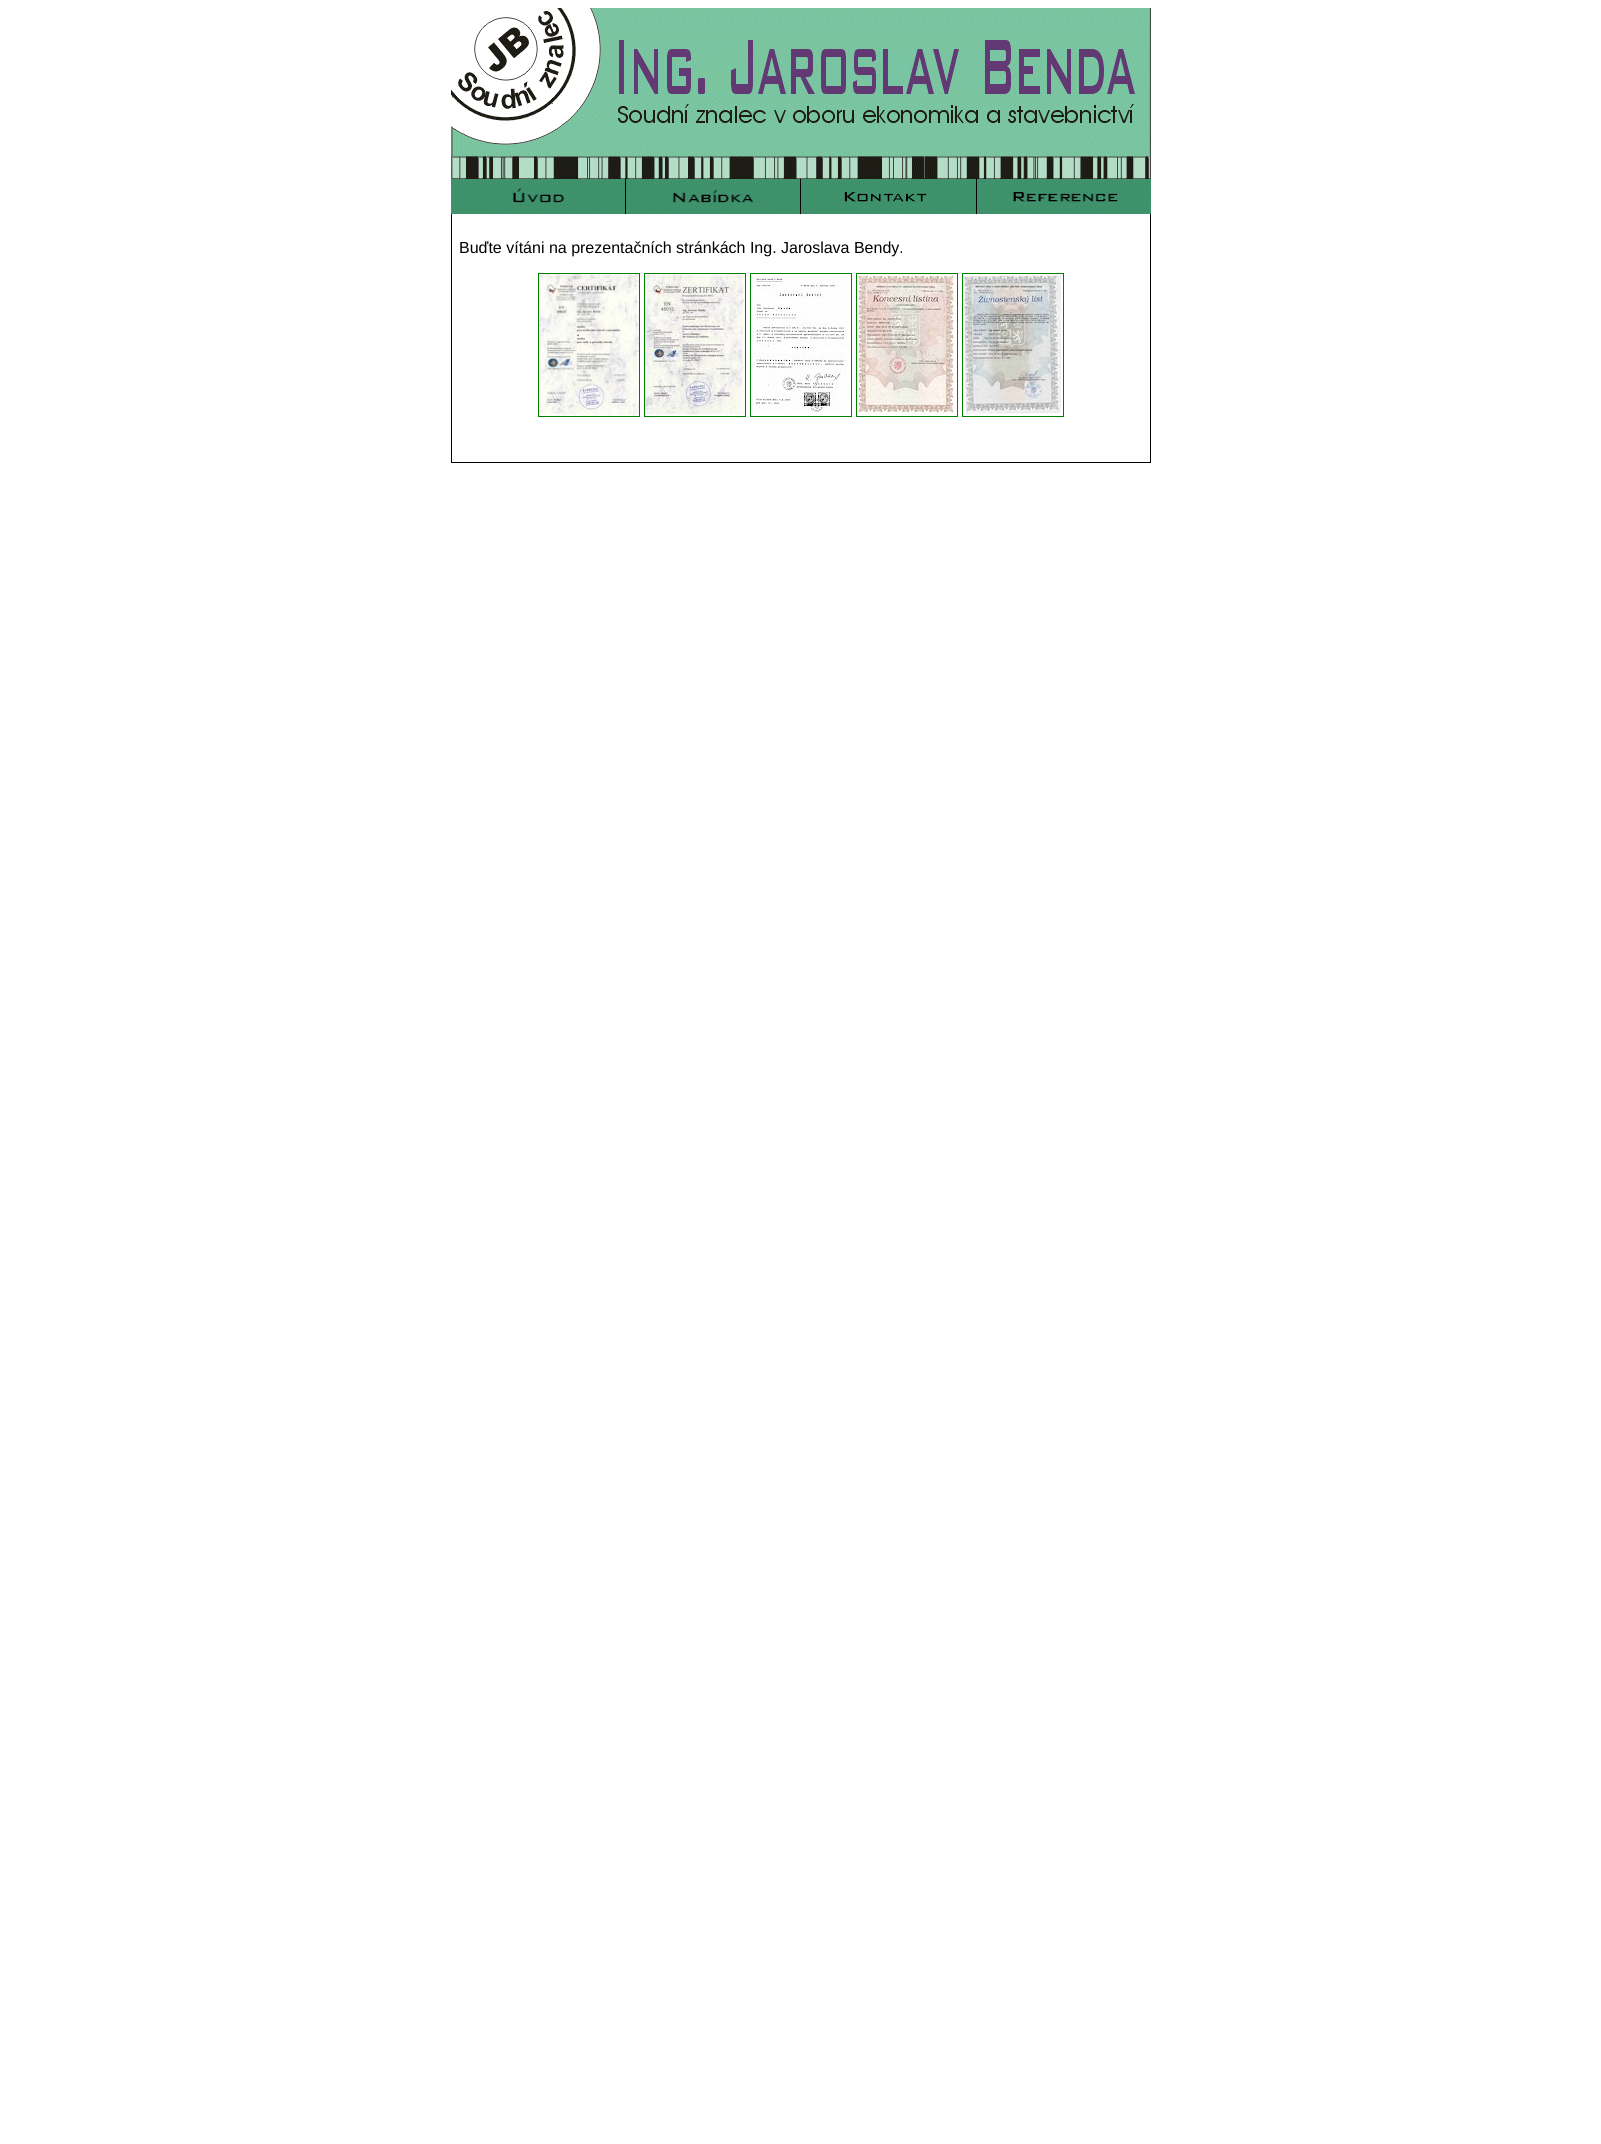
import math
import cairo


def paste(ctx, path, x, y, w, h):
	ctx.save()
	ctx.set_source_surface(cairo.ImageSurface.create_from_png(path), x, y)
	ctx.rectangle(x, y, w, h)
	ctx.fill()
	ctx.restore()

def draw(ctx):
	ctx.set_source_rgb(1, 1, 1)
	ctx.paint()
	paste(ctx, 'media/1.png', 451, 8, 700, 171)
	ctx.set_source_rgb(0, 0, 0)
	ctx.rectangle(625, 179, 1, 35)
	ctx.fill()
	paste(ctx, 'media/2.png', 451, 179, 174, 35)
	ctx.rectangle(800, 179, 1, 35)
	ctx.fill()
	paste(ctx, 'media/3.png', 626, 179, 174, 35)
	ctx.rectangle(976, 179, 1, 35)
	ctx.fill()
	paste(ctx, 'media/4.png', 801, 179, 175, 35)
	paste(ctx, 'media/5.png', 977, 179, 174, 35)
	ctx.rectangle(1150, 214, 1, 249)
	ctx.rectangle(451, 462, 700, 1)
	ctx.rectangle(451, 214, 1, 249)
	ctx.fill()
	ctx.select_font_face('Liberation Sans')
	ctx.set_font_size(16)
	ctx.move_to(459, 253)
	ctx.show_text('Buďte vítáni na prezentačních stránkách Ing. Jaroslava Bendy.')
	ctx.rectangle(538.5, 273.5, 101, 143)
	ctx.set_source_rgb(0, 0.502, 0)
	ctx.set_line_width(1)
	ctx.stroke()
	ctx.rectangle(644.5, 273.5, 101, 143)
	ctx.stroke()
	ctx.rectangle(750.5, 273.5, 101, 143)
	ctx.stroke()
	ctx.rectangle(856.5, 273.5, 101, 143)
	ctx.stroke()
	ctx.rectangle(962.5, 273.5, 101, 143)
	ctx.stroke()
	paste(ctx, 'media/6.png', 539, 274, 100, 142)
	paste(ctx, 'media/7.png', 645, 274, 100, 142)
	paste(ctx, 'media/8.png', 751, 274, 96, 140)
	paste(ctx, 'media/9.png', 857, 274, 100, 142)
	paste(ctx, 'media/10.png', 963, 274, 98, 142)


surface = cairo.ImageSurface(cairo.FORMAT_RGB24, 1601, 2144)
ctx = cairo.Context(surface)
options = cairo.FontOptions()
options.set_hint_metrics(cairo.HINT_METRICS_OFF)
options.set_hint_style(cairo.HINT_STYLE_NONE)
ctx.set_font_options(options)
ctx.set_miter_limit(4)
draw(ctx)
surface.write_to_png('image.png')
